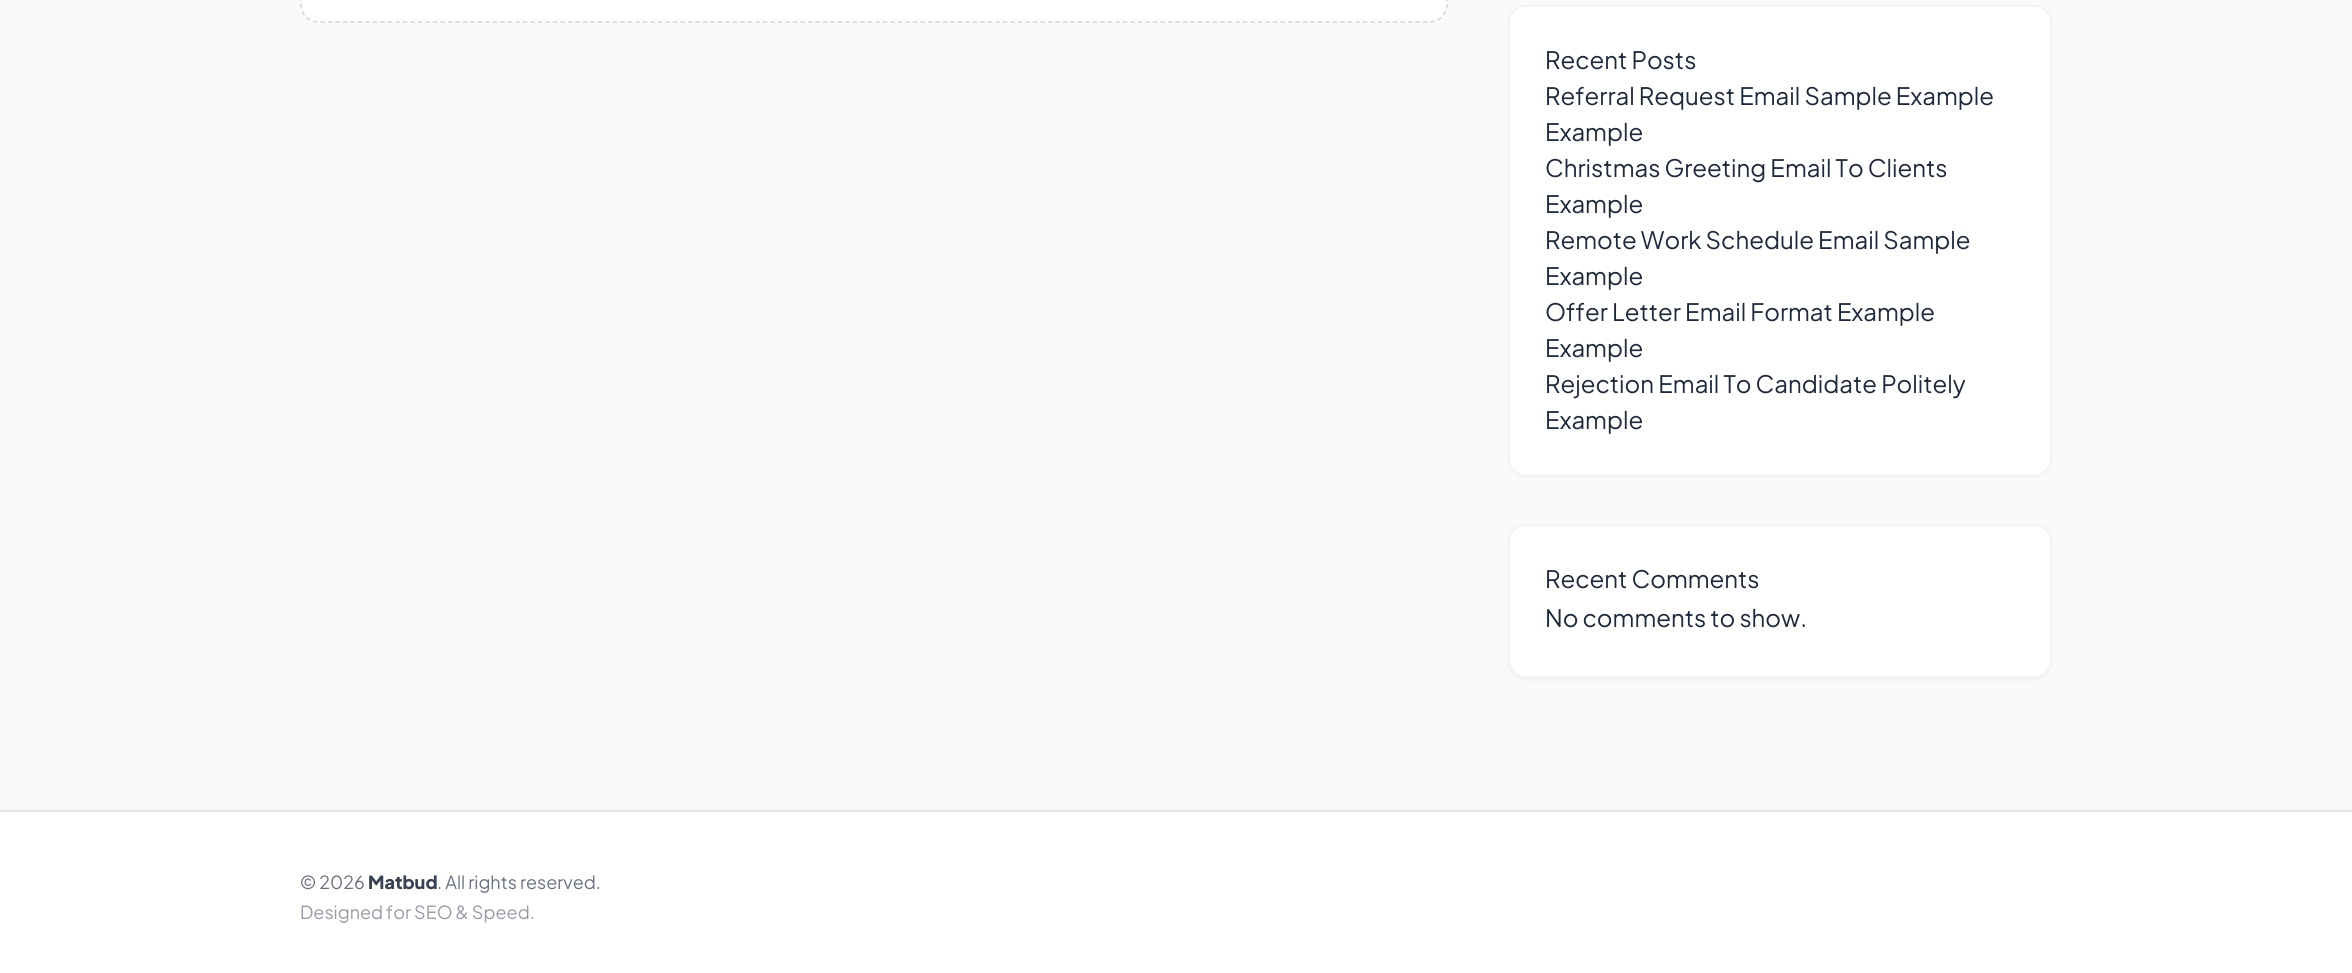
import math
import cairo


def round_path(ctx, x, y, w, h, r):
	ctx.new_sub_path()
	for i, (u, v) in enumerate([(x + w - r, y + h - r), (x + r, y + h - r), (x + r, y + r), (x + w - r, y + r)]):
		ctx.arc(u, v, r, i * math.pi / 2, (i + 1) * math.pi / 2)
	ctx.close_path()

def blur_box(ctx, x, y, w, h, r, blur, alpha):
	ctx.push_group_with_content(cairo.CONTENT_ALPHA)
	ctx.set_operator(cairo.OPERATOR_SOURCE)
	for i in range(15, -16, -2):
		e = blur * i / 6
		if min(w, h) + 2 * e > 0:
			ctx.set_source_rgba(0, 0, 0, alpha * math.erfc((i - 1) / 8.5) / 2)
			round_path(ctx, x - e, y - e, w + 2 * e, h + 2 * e, max(0, min(r + e + blur * .6, min(w, h) / 2 + e)))
			ctx.fill()
	ctx.mask(ctx.pop_group())

def draw(ctx):
	ctx.set_source_rgb(0.973, 0.98, 0.988)
	ctx.paint()
	ctx.set_source_rgb(1, 1, 1)
	round_path(ctx, 300, -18, 1148, 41, 18)
	ctx.fill()
	ctx.new_path()
	ctx.move_to(318, -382)
	ctx.line_to(1429.5, -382)
	ctx.curve_to(1439, -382, 1447, -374, 1447, -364.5)
	ctx.line_to(1447, 4.5)
	ctx.curve_to(1447, 14, 1439, 22, 1429.5, 22)
	ctx.line_to(318, 22)
	ctx.curve_to(308.5, 22, 301, 14, 301, 4.5)
	ctx.line_to(301, -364.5)
	ctx.curve_to(301, -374, 308.5, -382, 318, -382)
	ctx.close_path()
	ctx.set_source_rgb(0.82, 0.835, 0.859)
	ctx.set_line_width(1.5)
	ctx.set_dash([4.5, 3])
	ctx.stroke()
	ctx.set_source_rgb(0, 0, 0)
	blur_box(ctx, 1508, 6, 544, 471, 18, 1.5, 0.05)
	ctx.set_source_rgb(1, 1, 1)
	round_path(ctx, 1509, 6, 542, 469, 17)
	ctx.fill_preserve()
	ctx.set_source_rgb(0.953, 0.957, 0.965)
	ctx.set_line_width(2)
	ctx.set_dash([])
	ctx.stroke()
	ctx.select_font_face('Plus Jakarta Sans')
	ctx.set_font_size(24)
	ctx.set_source_rgb(0.118, 0.161, 0.231)
	for x, y, s in [
		(1545, 69, 'Recent Posts'),
		(1545, 105, 'Referral Request Email Sample Example'),
		(1545, 141, 'Example'),
		(1545, 177, 'Christmas Greeting Email To Clients'),
		(1545, 213, 'Example'),
		(1545, 249, 'Remote Work Schedule Email Sample'),
		(1545, 285, 'Example'),
		(1545, 321, 'Offer Letter Email Format Example'),
		(1545, 357, 'Example'),
		(1545, 393, 'Rejection Email To Candidate Politely'),
		(1545, 429, 'Example'),
	]:
		ctx.move_to(x, y)
		ctx.show_text(s)
	ctx.set_source_rgb(0, 0, 0)
	blur_box(ctx, 1508, 525, 544, 155, 18, 1.5, 0.05)
	ctx.set_source_rgb(1, 1, 1)
	round_path(ctx, 1509, 525, 542, 152, 17)
	ctx.fill_preserve()
	ctx.set_source_rgb(0.953, 0.957, 0.965)
	ctx.stroke()
	ctx.set_source_rgb(0.118, 0.161, 0.231)
	ctx.move_to(1545, 588)
	ctx.show_text('Recent Comments')
	ctx.move_to(1545, 627)
	ctx.show_text('No comments to show.')
	ctx.set_source_rgb(1, 1, 1)
	ctx.rectangle(0, 812, 2352, 161)
	ctx.fill()
	ctx.set_source_rgb(0.898, 0.906, 0.922)
	ctx.rectangle(0, 810, 2352, 2)
	ctx.fill()
	ctx.set_font_size(18)
	ctx.set_source_rgb(0.42, 0.447, 0.502)
	ctx.move_to(300, 889)
	ctx.show_text('© 2026')
	ctx.select_font_face('Plus Jakarta Sans ExtraBold')
	ctx.set_source_rgb(0.216, 0.255, 0.318)
	ctx.move_to(368, 889)
	ctx.show_text('Matbud')
	ctx.select_font_face('Plus Jakarta Sans')
	ctx.set_source_rgb(0.42, 0.447, 0.502)
	ctx.move_to(437, 889)
	ctx.show_text('. All rights reserved.')
	ctx.set_source_rgb(0.592, 0.612, 0.651)
	ctx.move_to(300, 919)
	ctx.show_text('Designed for SEO & Speed.')


surface = cairo.ImageSurface(cairo.FORMAT_RGB24, 2352, 973)
ctx = cairo.Context(surface)
options = cairo.FontOptions()
options.set_hint_metrics(cairo.HINT_METRICS_OFF)
options.set_hint_style(cairo.HINT_STYLE_NONE)
ctx.set_font_options(options)
ctx.set_miter_limit(4)
draw(ctx)
surface.write_to_png('image.png')
